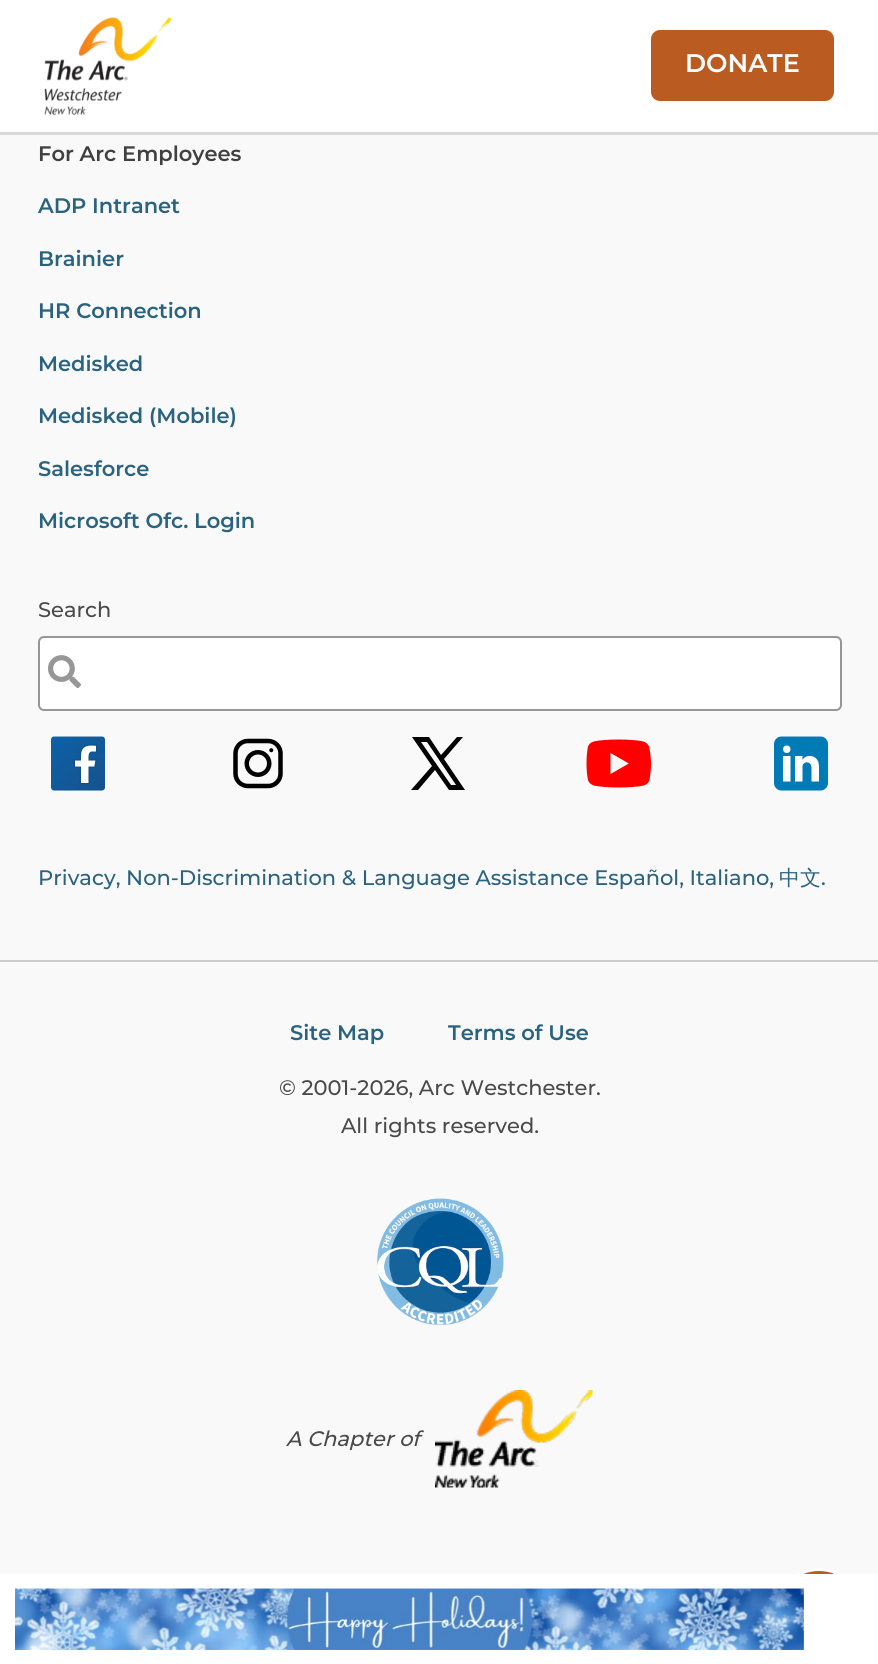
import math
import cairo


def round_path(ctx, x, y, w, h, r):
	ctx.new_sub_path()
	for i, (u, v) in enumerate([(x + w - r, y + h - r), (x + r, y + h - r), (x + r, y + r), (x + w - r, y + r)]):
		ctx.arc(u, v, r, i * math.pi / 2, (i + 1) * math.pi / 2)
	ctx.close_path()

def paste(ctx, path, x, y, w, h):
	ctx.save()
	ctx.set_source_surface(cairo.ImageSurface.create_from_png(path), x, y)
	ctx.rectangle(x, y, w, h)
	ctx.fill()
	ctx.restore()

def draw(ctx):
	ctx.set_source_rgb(0.976, 0.976, 0.976)
	ctx.paint()
	ctx.set_source_rgb(1, 1, 1)
	ctx.rectangle(0, 0, 878, 132)
	ctx.fill()
	ctx.set_source_rgb(0.847, 0.847, 0.847)
	ctx.rectangle(0, 132, 878, 3)
	ctx.fill()
	paste(ctx, 'media/1.png', 44, 17, 128, 98)
	ctx.set_source_rgb(0.729, 0.361, 0.133)
	round_path(ctx, 651, 30, 183, 71, 9)
	ctx.fill()
	ctx.select_font_face('Montserrat SemiBold')
	ctx.set_font_size(25.5)
	ctx.set_source_rgb(1, 1, 1)
	ctx.move_to(685, 72)
	ctx.show_text('DONATE')
	ctx.set_source_rgb(0.729, 0.361, 0.133)
	ctx.new_path()
	ctx.arc(819, 1613, 43.5, 0, 2 * math.pi)
	ctx.fill_preserve()
	ctx.set_source_rgb(1, 1, 1)
	ctx.set_line_width(3)
	ctx.stroke()
	ctx.set_font_size(21)
	ctx.set_source_rgb(0.251, 0.251, 0.251)
	ctx.move_to(38, 161)
	ctx.show_text('For Arc Employees')
	ctx.set_source_rgb(0.165, 0.388, 0.498)
	for x, y, s in [
		(38, 213, 'ADP Intranet'),
		(38, 266, 'Brainier'),
		(38, 318, 'HR Connection'),
		(38, 371, 'Medisked'),
		(38, 423, 'Medisked (Mobile)'),
		(38, 476, 'Salesforce'),
		(38, 528, 'Microsoft Ofc. Login'),
	]:
		ctx.move_to(x, y)
		ctx.show_text(s)
	ctx.select_font_face('Montserrat Medium')
	ctx.set_source_rgb(0.29, 0.29, 0.29)
	ctx.move_to(38, 617)
	ctx.show_text('Search')
	ctx.set_source_rgb(1, 1, 1)
	round_path(ctx, 39, 637, 802, 73, 5)
	ctx.fill_preserve()
	ctx.set_source_rgb(0.592, 0.592, 0.592)
	ctx.set_line_width(2)
	ctx.stroke()
	paste(ctx, 'media/2.png', 48, 655, 33, 34)
	paste(ctx, 'media/3.png', 51, 736, 54, 55)
	paste(ctx, 'media/4.png', 233, 738, 50, 51)
	ctx.set_source_rgb(0, 0, 0)
	ctx.new_path()
	ctx.move_to(465, 790)
	ctx.line_to(444, 759)
	ctx.line_to(463, 737)
	ctx.line_to(457, 737)
	ctx.line_to(441, 755)
	ctx.line_to(429, 737)
	ctx.line_to(412, 737)
	ctx.line_to(432, 766)
	ctx.line_to(411, 790)
	ctx.line_to(418, 790)
	ctx.line_to(435, 770)
	ctx.line_to(449, 790)
	ctx.close_path()
	ctx.move_to(427, 742)
	ctx.line_to(456, 785)
	ctx.line_to(451, 785)
	ctx.line_to(421, 742)
	ctx.close_path()
	ctx.fill()
	paste(ctx, 'media/5.png', 586, 739, 66, 49)
	paste(ctx, 'media/6.png', 774, 736, 54, 55)
	ctx.set_source_rgb(0.165, 0.388, 0.498)
	ctx.move_to(38, 885)
	ctx.show_text('Privacy, Non-Discrimination & Language Assistance Español, Italiano,')
	ctx.select_font_face('WenQuanYi Zen Hei Medium')
	ctx.move_to(779, 885)
	ctx.show_text('中文')
	ctx.select_font_face('Montserrat Medium')
	ctx.move_to(821, 885)
	ctx.show_text('.')
	ctx.set_source_rgb(0.8, 0.8, 0.8)
	ctx.rectangle(0, 960, 878, 2)
	ctx.fill()
	ctx.select_font_face('Montserrat SemiBold')
	ctx.set_source_rgb(0.165, 0.388, 0.498)
	ctx.move_to(290, 1040)
	ctx.show_text('Site Map')
	ctx.move_to(448, 1040)
	ctx.show_text('Terms of Use')
	ctx.select_font_face('Montserrat Medium')
	ctx.set_source_rgb(0.29, 0.29, 0.29)
	ctx.move_to(279, 1095)
	ctx.show_text('© 2001-2026, Arc Westchester.')
	ctx.move_to(341, 1133)
	ctx.show_text('All rights reserved.')
	paste(ctx, 'media/7.png', 377, 1198, 127, 127)
	ctx.select_font_face('Montserrat Medium', cairo.FONT_SLANT_ITALIC)
	ctx.move_to(286, 1446)
	ctx.show_text('A Chapter of')
	paste(ctx, 'media/8.png', 435, 1390, 158, 98)
	ctx.set_source_rgb(1, 1, 1)
	ctx.rectangle(0, 1574, 878, 90)
	ctx.fill()
	paste(ctx, 'media/9.png', 15, 1588, 789, 62)


surface = cairo.ImageSurface(cairo.FORMAT_RGB24, 878, 1664)
ctx = cairo.Context(surface)
options = cairo.FontOptions()
options.set_hint_metrics(cairo.HINT_METRICS_OFF)
options.set_hint_style(cairo.HINT_STYLE_NONE)
ctx.set_font_options(options)
ctx.set_miter_limit(4)
draw(ctx)
surface.write_to_png('image.png')
